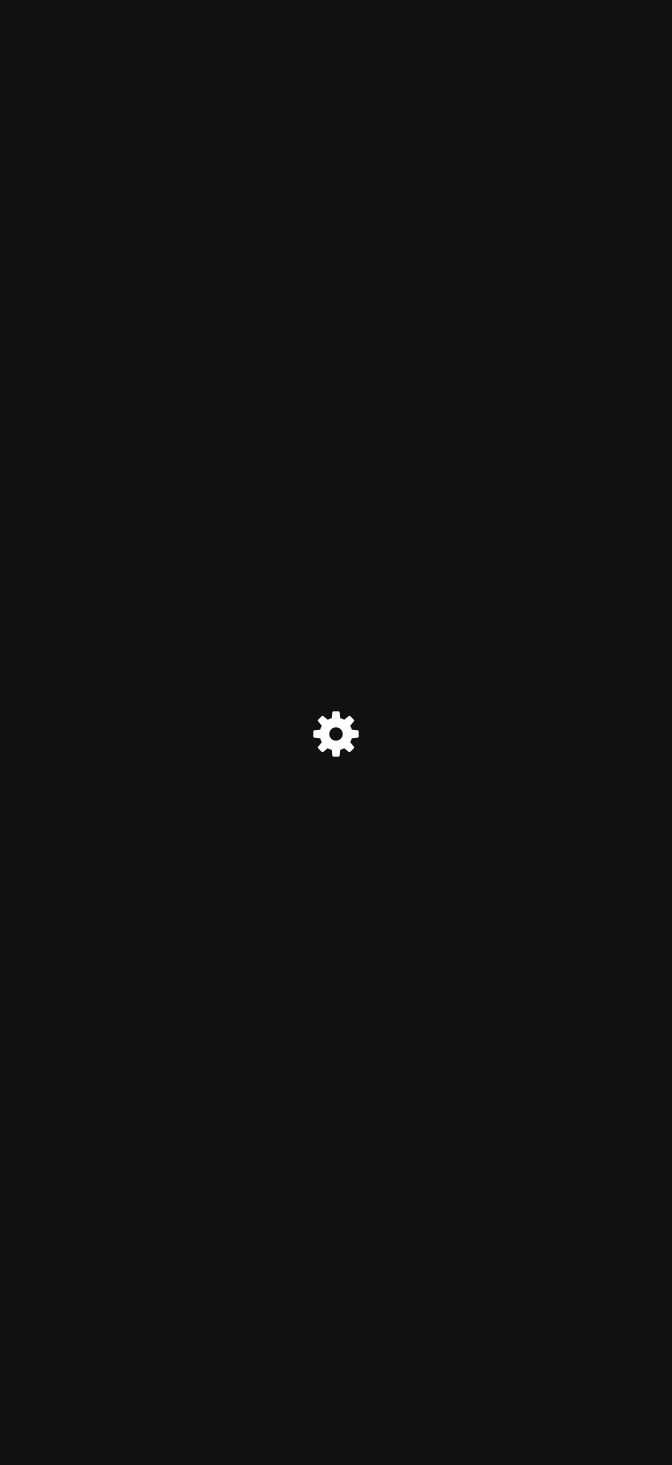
import math
import cairo


def paste(ctx, path, x, y, w, h):
	ctx.save()
	ctx.set_source_surface(cairo.ImageSurface.create_from_png(path), x, y)
	ctx.rectangle(x, y, w, h)
	ctx.fill()
	ctx.restore()

def draw(ctx):
	ctx.set_source_rgb(0.067, 0.067, 0.067)
	ctx.paint()
	paste(ctx, 'media/1.png', 313, 711, 46, 46)


surface = cairo.ImageSurface(cairo.FORMAT_RGB24, 672, 1465)
ctx = cairo.Context(surface)
options = cairo.FontOptions()
options.set_hint_metrics(cairo.HINT_METRICS_OFF)
options.set_hint_style(cairo.HINT_STYLE_NONE)
ctx.set_font_options(options)
ctx.set_miter_limit(4)
draw(ctx)
surface.write_to_png('image.png')
